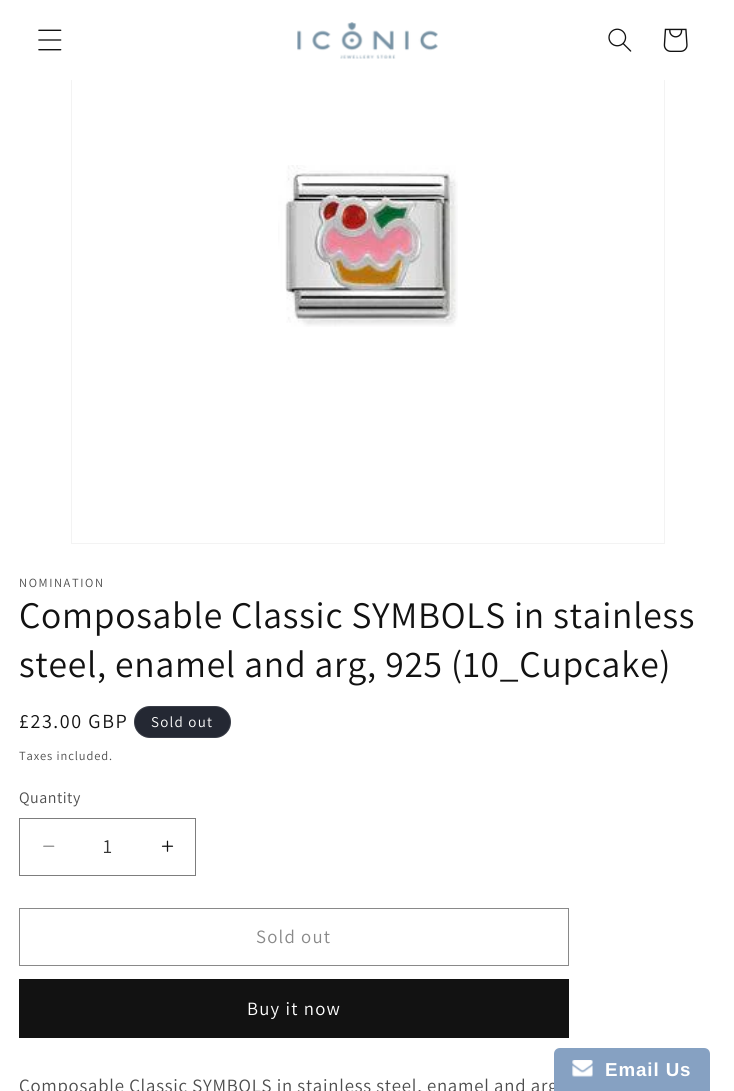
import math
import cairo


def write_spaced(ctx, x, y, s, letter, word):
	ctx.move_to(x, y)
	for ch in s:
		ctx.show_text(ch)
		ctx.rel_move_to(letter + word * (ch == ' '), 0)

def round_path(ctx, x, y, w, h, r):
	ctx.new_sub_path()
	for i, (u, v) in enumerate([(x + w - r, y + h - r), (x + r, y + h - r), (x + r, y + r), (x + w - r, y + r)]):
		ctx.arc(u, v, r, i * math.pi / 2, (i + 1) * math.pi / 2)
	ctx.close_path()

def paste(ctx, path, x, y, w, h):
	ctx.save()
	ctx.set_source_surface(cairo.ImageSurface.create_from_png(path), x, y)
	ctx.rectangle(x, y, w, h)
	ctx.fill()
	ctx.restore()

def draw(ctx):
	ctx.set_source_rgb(1, 1, 1)
	ctx.paint()
	ctx.rectangle(71.5, -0.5, 593, 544)
	ctx.set_source_rgb(0.953, 0.953, 0.953)
	ctx.set_line_width(1)
	ctx.stroke()
	ctx.set_source_rgb(1, 1, 1)
	ctx.rectangle(71, 0, 594, 80)
	ctx.fill()
	paste(ctx, 'media/1.png', 38, 29, 24, 22)
	paste(ctx, 'media/2.png', 297, 22, 141, 37)
	paste(ctx, 'media/3.png', 608, 28, 24, 24)
	paste(ctx, 'media/4.png', 663, 28, 25, 24)
	paste(ctx, 'media/5.png', 278, 165, 180, 162)
	ctx.select_font_face('Assistant')
	ctx.set_font_size(12.5)
	ctx.set_source_rgb(0.302, 0.302, 0.302)
	write_spaced(ctx, 19, 587, 'NOMINATION', 1.6, 0)
	ctx.set_font_size(37.5)
	ctx.set_source_rgb(0.071, 0.071, 0.071)
	write_spaced(ctx, 19, 628, 'Composable Classic SYMBOLS in stainless', 0.75, 0)
	write_spaced(ctx, 19, 677, 'steel, enamel and arg, 925 (10_Cupcake)', 0.75, 0)
	ctx.set_font_size(20)
	write_spaced(ctx, 19, 728, '£23.00 GBP', 1.6, 0)
	ctx.set_source_rgb(0.141, 0.157, 0.2)
	round_path(ctx, 134, 706, 97, 32, 16)
	ctx.fill()
	round_path(ctx, 134.5, 706.5, 96, 31, 15.5)
	ctx.set_source_rgba(1, 1, 1, 0.1)
	ctx.stroke()
	ctx.set_font_size(15)
	ctx.set_source_rgb(1, 1, 1)
	write_spaced(ctx, 151, 727, 'Sold out', 1.25, 0)
	ctx.set_font_size(12.5)
	ctx.set_source_rgb(0.302, 0.302, 0.302)
	write_spaced(ctx, 19, 760, 'Taxes included.', 0.9, 0)
	ctx.set_font_size(16)
	write_spaced(ctx, 19, 803, 'Quantity', 0.5, 0)
	paste(ctx, 'media/6.png', 43, 845, 12, 2)
	paste(ctx, 'media/7.png', 161, 840, 13, 12)
	ctx.rectangle(19.5, 818.5, 176, 57)
	ctx.set_source_rgb(0.49, 0.49, 0.49)
	ctx.stroke()
	ctx.set_font_size(20)
	ctx.set_source_rgb(0.212, 0.212, 0.212)
	ctx.move_to(103, 853)
	ctx.show_text('1')
	ctx.rectangle(19.5, 908.5, 549, 57)
	ctx.set_source_rgb(0.537, 0.537, 0.537)
	ctx.stroke()
	ctx.set_font_size(18.75)
	write_spaced(ctx, 256, 943, 'Sold out', 1.25, 0)
	ctx.set_source_rgb(0.071, 0.071, 0.071)
	ctx.rectangle(19, 979, 550, 59)
	ctx.fill()
	ctx.set_source_rgb(1, 1, 1)
	write_spaced(ctx, 247, 1015, 'Buy it now', 1.25, 0)
	ctx.set_source_rgb(0.302, 0.302, 0.302)
	write_spaced(ctx, 19, 1092, 'Composable Classic SYMBOLS in stainless steel, enamel and arg', 0.75, 0)
	ctx.set_source_rgb(0.525, 0.631, 0.761)
	ctx.new_path()
	ctx.move_to(560, 1048)
	ctx.line_to(704, 1048)
	ctx.curve_to(707.5, 1048, 710, 1050.5, 710, 1054)
	ctx.line_to(710, 1091)
	ctx.line_to(554, 1091)
	ctx.line_to(554, 1054)
	ctx.curve_to(554, 1050.5, 556.5, 1048, 560, 1048)
	ctx.close_path()
	ctx.fill()
	paste(ctx, 'media/8.png', 572, 1060, 21, 17)
	ctx.select_font_face('Liberation Sans', cairo.FONT_SLANT_NORMAL, cairo.FONT_WEIGHT_BOLD)
	ctx.set_source_rgb(1, 1, 1)
	write_spaced(ctx, 605, 1076, 'Email Us', 0.9, 0)


surface = cairo.ImageSurface(cairo.FORMAT_RGB24, 734, 1091)
ctx = cairo.Context(surface)
options = cairo.FontOptions()
options.set_hint_metrics(cairo.HINT_METRICS_OFF)
options.set_hint_style(cairo.HINT_STYLE_NONE)
ctx.set_font_options(options)
ctx.set_miter_limit(4)
draw(ctx)
surface.write_to_png('image.png')
